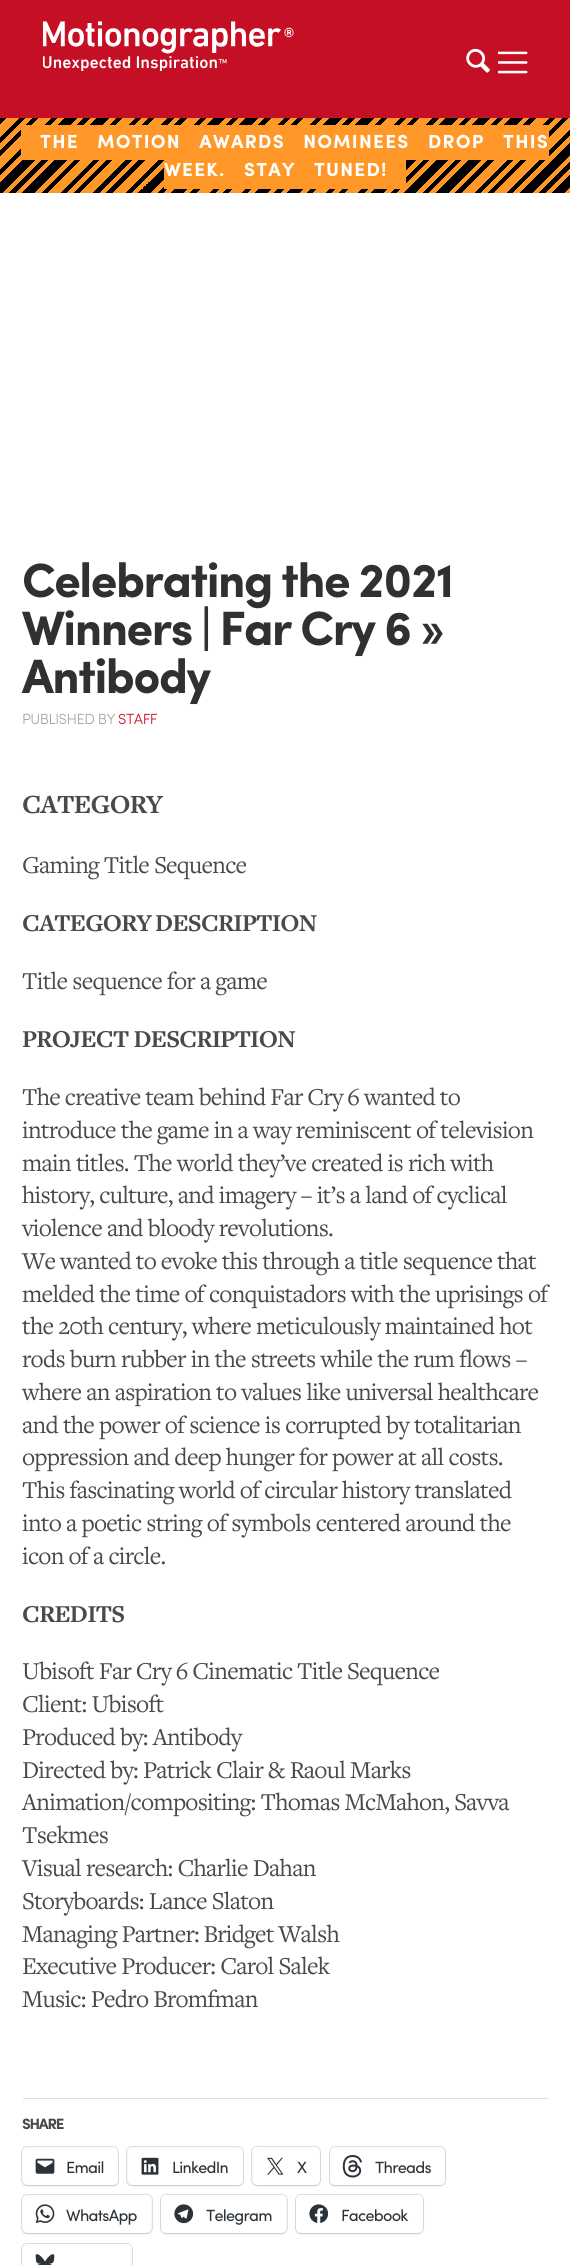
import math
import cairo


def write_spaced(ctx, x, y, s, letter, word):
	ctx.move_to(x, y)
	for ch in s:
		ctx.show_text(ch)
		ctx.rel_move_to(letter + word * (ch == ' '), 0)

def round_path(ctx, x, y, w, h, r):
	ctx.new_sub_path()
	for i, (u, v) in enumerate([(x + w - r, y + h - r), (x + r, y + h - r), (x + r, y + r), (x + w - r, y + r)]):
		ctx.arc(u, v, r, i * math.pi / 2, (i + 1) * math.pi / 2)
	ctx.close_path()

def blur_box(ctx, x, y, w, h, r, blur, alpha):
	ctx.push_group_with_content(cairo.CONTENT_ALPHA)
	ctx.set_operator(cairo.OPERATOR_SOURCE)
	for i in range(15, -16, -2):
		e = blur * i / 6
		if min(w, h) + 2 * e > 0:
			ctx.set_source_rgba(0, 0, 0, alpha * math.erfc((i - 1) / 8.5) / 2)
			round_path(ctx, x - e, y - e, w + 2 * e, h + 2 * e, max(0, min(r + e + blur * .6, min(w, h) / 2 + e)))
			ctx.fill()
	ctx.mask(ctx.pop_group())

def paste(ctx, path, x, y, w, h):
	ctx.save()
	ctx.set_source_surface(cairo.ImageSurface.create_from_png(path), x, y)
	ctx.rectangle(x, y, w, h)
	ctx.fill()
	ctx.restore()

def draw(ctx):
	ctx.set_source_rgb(1, 1, 1)
	ctx.paint()
	ctx.set_source_rgb(0.773, 0.059, 0.141)
	ctx.rectangle(0, 0, 570, 118)
	ctx.fill()
	paste(ctx, 'media/1.png', 43, 21, 251, 50)
	paste(ctx, 'media/2.png', 466, 48, 24, 25)
	paste(ctx, 'media/3.png', 498, 51, 30, 23)
	gradient = cairo.LinearGradient(124, -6.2, 447, 317)
	gradient.add_color_stop_rgba(0, 0, 0, 0, 1)
	gradient.add_color_stop_rgba(0.01, 0, 0, 0, 1)
	gradient.add_color_stop_rgba(0.01, 1, 0.596, 0.157, 1)
	gradient.add_color_stop_rgba(0.02, 1, 0.596, 0.157, 1)
	gradient.add_color_stop_rgba(0.02, 0, 0, 0, 1)
	gradient.add_color_stop_rgba(0.02, 0, 0, 0, 1)
	gradient.add_color_stop_rgba(0.02, 1, 0.596, 0.157, 1)
	gradient.add_color_stop_rgba(0.03, 1, 0.596, 0.157, 1)
	gradient.add_color_stop_rgba(0.03, 0, 0, 0, 1)
	gradient.add_color_stop_rgba(0.04, 0, 0, 0, 1)
	gradient.add_color_stop_rgba(0.04, 1, 0.596, 0.157, 1)
	gradient.add_color_stop_rgba(0.05, 1, 0.596, 0.157, 1)
	gradient.add_color_stop_rgba(0.05, 0, 0, 0, 1)
	gradient.add_color_stop_rgba(0.06, 0, 0, 0, 1)
	gradient.add_color_stop_rgba(0.06, 1, 0.596, 0.157, 1)
	gradient.add_color_stop_rgba(0.07, 1, 0.596, 0.157, 1)
	gradient.add_color_stop_rgba(0.07, 0, 0, 0, 1)
	gradient.add_color_stop_rgba(0.07, 0, 0, 0, 1)
	gradient.add_color_stop_rgba(0.07, 1, 0.596, 0.157, 1)
	gradient.add_color_stop_rgba(0.08, 1, 0.596, 0.157, 1)
	gradient.add_color_stop_rgba(0.08, 0, 0, 0, 1)
	gradient.add_color_stop_rgba(0.09, 0, 0, 0, 1)
	gradient.add_color_stop_rgba(0.09, 1, 0.596, 0.157, 1)
	gradient.add_color_stop_rgba(0.1, 1, 0.596, 0.157, 1)
	gradient.add_color_stop_rgba(0.1, 0, 0, 0, 1)
	gradient.add_color_stop_rgba(0.11, 0, 0, 0, 1)
	gradient.add_color_stop_rgba(0.11, 1, 0.596, 0.157, 1)
	gradient.add_color_stop_rgba(0.11, 1, 0.596, 0.157, 1)
	gradient.add_color_stop_rgba(0.11, 0, 0, 0, 1)
	gradient.add_color_stop_rgba(0.12, 0, 0, 0, 1)
	gradient.add_color_stop_rgba(0.12, 1, 0.596, 0.157, 1)
	gradient.add_color_stop_rgba(0.13, 1, 0.596, 0.157, 1)
	gradient.add_color_stop_rgba(0.13, 0, 0, 0, 1)
	gradient.add_color_stop_rgba(0.14, 0, 0, 0, 1)
	gradient.add_color_stop_rgba(0.14, 1, 0.596, 0.157, 1)
	gradient.add_color_stop_rgba(0.15, 1, 0.596, 0.157, 1)
	gradient.add_color_stop_rgba(0.15, 0, 0, 0, 1)
	gradient.add_color_stop_rgba(0.16, 0, 0, 0, 1)
	gradient.add_color_stop_rgba(0.16, 1, 0.596, 0.157, 1)
	gradient.add_color_stop_rgba(0.16, 1, 0.596, 0.157, 1)
	gradient.add_color_stop_rgba(0.16, 0, 0, 0, 1)
	gradient.add_color_stop_rgba(0.17, 0, 0, 0, 1)
	gradient.add_color_stop_rgba(0.17, 1, 0.596, 0.157, 1)
	gradient.add_color_stop_rgba(0.18, 1, 0.596, 0.157, 1)
	gradient.add_color_stop_rgba(0.18, 0, 0, 0, 1)
	gradient.add_color_stop_rgba(0.19, 0, 0, 0, 1)
	gradient.add_color_stop_rgba(0.19, 1, 0.596, 0.157, 1)
	gradient.add_color_stop_rgba(0.2, 1, 0.596, 0.157, 1)
	gradient.add_color_stop_rgba(0.2, 0, 0, 0, 1)
	gradient.add_color_stop_rgba(0.2, 0, 0, 0, 1)
	gradient.add_color_stop_rgba(0.2, 1, 0.596, 0.157, 1)
	gradient.add_color_stop_rgba(0.21, 1, 0.596, 0.157, 1)
	gradient.add_color_stop_rgba(0.21, 0, 0, 0, 1)
	gradient.add_color_stop_rgba(0.22, 0, 0, 0, 1)
	gradient.add_color_stop_rgba(0.22, 1, 0.596, 0.157, 1)
	gradient.add_color_stop_rgba(0.23, 1, 0.596, 0.157, 1)
	gradient.add_color_stop_rgba(0.23, 0, 0, 0, 1)
	gradient.add_color_stop_rgba(0.24, 0, 0, 0, 1)
	gradient.add_color_stop_rgba(0.24, 1, 0.596, 0.157, 1)
	gradient.add_color_stop_rgba(0.25, 1, 0.596, 0.157, 1)
	gradient.add_color_stop_rgba(0.25, 0, 0, 0, 1)
	gradient.add_color_stop_rgba(0.25, 0, 0, 0, 1)
	gradient.add_color_stop_rgba(0.25, 1, 0.596, 0.157, 1)
	gradient.add_color_stop_rgba(0.26, 1, 0.596, 0.157, 1)
	gradient.add_color_stop_rgba(0.26, 0, 0, 0, 1)
	gradient.add_color_stop_rgba(0.27, 0, 0, 0, 1)
	gradient.add_color_stop_rgba(0.27, 1, 0.596, 0.157, 1)
	gradient.add_color_stop_rgba(0.28, 1, 0.596, 0.157, 1)
	gradient.add_color_stop_rgba(0.28, 0, 0, 0, 1)
	gradient.add_color_stop_rgba(0.29, 0, 0, 0, 1)
	gradient.add_color_stop_rgba(0.29, 1, 0.596, 0.157, 1)
	gradient.add_color_stop_rgba(0.3, 1, 0.596, 0.157, 1)
	gradient.add_color_stop_rgba(0.3, 0, 0, 0, 1)
	gradient.add_color_stop_rgba(0.3, 0, 0, 0, 1)
	gradient.add_color_stop_rgba(0.3, 1, 0.596, 0.157, 1)
	gradient.add_color_stop_rgba(0.31, 1, 0.596, 0.157, 1)
	gradient.add_color_stop_rgba(0.31, 0, 0, 0, 1)
	gradient.add_color_stop_rgba(0.32, 0, 0, 0, 1)
	gradient.add_color_stop_rgba(0.32, 1, 0.596, 0.157, 1)
	gradient.add_color_stop_rgba(0.33, 1, 0.596, 0.157, 1)
	gradient.add_color_stop_rgba(0.33, 0, 0, 0, 1)
	gradient.add_color_stop_rgba(0.34, 0, 0, 0, 1)
	gradient.add_color_stop_rgba(0.34, 1, 0.596, 0.157, 1)
	gradient.add_color_stop_rgba(0.34, 1, 0.596, 0.157, 1)
	gradient.add_color_stop_rgba(0.34, 0, 0, 0, 1)
	gradient.add_color_stop_rgba(0.35, 0, 0, 0, 1)
	gradient.add_color_stop_rgba(0.35, 1, 0.596, 0.157, 1)
	gradient.add_color_stop_rgba(0.36, 1, 0.596, 0.157, 1)
	gradient.add_color_stop_rgba(0.36, 0, 0, 0, 1)
	gradient.add_color_stop_rgba(0.37, 0, 0, 0, 1)
	gradient.add_color_stop_rgba(0.37, 1, 0.596, 0.157, 1)
	gradient.add_color_stop_rgba(0.38, 1, 0.596, 0.157, 1)
	gradient.add_color_stop_rgba(0.38, 0, 0, 0, 1)
	gradient.add_color_stop_rgba(0.39, 0, 0, 0, 1)
	gradient.add_color_stop_rgba(0.39, 1, 0.596, 0.157, 1)
	gradient.add_color_stop_rgba(0.39, 1, 0.596, 0.157, 1)
	gradient.add_color_stop_rgba(0.39, 0, 0, 0, 1)
	gradient.add_color_stop_rgba(0.4, 0, 0, 0, 1)
	gradient.add_color_stop_rgba(0.4, 1, 0.596, 0.157, 1)
	gradient.add_color_stop_rgba(0.41, 1, 0.596, 0.157, 1)
	gradient.add_color_stop_rgba(0.41, 0, 0, 0, 1)
	gradient.add_color_stop_rgba(0.42, 0, 0, 0, 1)
	gradient.add_color_stop_rgba(0.42, 1, 0.596, 0.157, 1)
	gradient.add_color_stop_rgba(0.43, 1, 0.596, 0.157, 1)
	gradient.add_color_stop_rgba(0.43, 0, 0, 0, 1)
	gradient.add_color_stop_rgba(0.43, 0, 0, 0, 1)
	gradient.add_color_stop_rgba(0.43, 1, 0.596, 0.157, 1)
	gradient.add_color_stop_rgba(0.44, 1, 0.596, 0.157, 1)
	gradient.add_color_stop_rgba(0.44, 0, 0, 0, 1)
	gradient.add_color_stop_rgba(0.45, 0, 0, 0, 1)
	gradient.add_color_stop_rgba(0.45, 1, 0.596, 0.157, 1)
	gradient.add_color_stop_rgba(0.46, 1, 0.596, 0.157, 1)
	gradient.add_color_stop_rgba(0.46, 0, 0, 0, 1)
	gradient.add_color_stop_rgba(0.47, 0, 0, 0, 1)
	gradient.add_color_stop_rgba(0.47, 1, 0.596, 0.157, 1)
	gradient.add_color_stop_rgba(0.48, 1, 0.596, 0.157, 1)
	gradient.add_color_stop_rgba(0.48, 0, 0, 0, 1)
	gradient.add_color_stop_rgba(0.48, 0, 0, 0, 1)
	gradient.add_color_stop_rgba(0.48, 1, 0.596, 0.157, 1)
	gradient.add_color_stop_rgba(0.49, 1, 0.596, 0.157, 1)
	gradient.add_color_stop_rgba(0.49, 0, 0, 0, 1)
	gradient.add_color_stop_rgba(0.5, 0, 0, 0, 1)
	gradient.add_color_stop_rgba(0.5, 1, 0.596, 0.157, 1)
	gradient.add_color_stop_rgba(0.51, 1, 0.596, 0.157, 1)
	gradient.add_color_stop_rgba(0.51, 0, 0, 0, 1)
	gradient.add_color_stop_rgba(0.52, 0, 0, 0, 1)
	gradient.add_color_stop_rgba(0.52, 1, 0.596, 0.157, 1)
	gradient.add_color_stop_rgba(0.52, 1, 0.596, 0.157, 1)
	gradient.add_color_stop_rgba(0.52, 0, 0, 0, 1)
	gradient.add_color_stop_rgba(0.53, 0, 0, 0, 1)
	gradient.add_color_stop_rgba(0.53, 1, 0.596, 0.157, 1)
	gradient.add_color_stop_rgba(0.54, 1, 0.596, 0.157, 1)
	gradient.add_color_stop_rgba(0.54, 0, 0, 0, 1)
	gradient.add_color_stop_rgba(0.55, 0, 0, 0, 1)
	gradient.add_color_stop_rgba(0.55, 1, 0.596, 0.157, 1)
	gradient.add_color_stop_rgba(0.56, 1, 0.596, 0.157, 1)
	gradient.add_color_stop_rgba(0.56, 0, 0, 0, 1)
	gradient.add_color_stop_rgba(0.57, 0, 0, 0, 1)
	gradient.add_color_stop_rgba(0.57, 1, 0.596, 0.157, 1)
	gradient.add_color_stop_rgba(0.57, 1, 0.596, 0.157, 1)
	gradient.add_color_stop_rgba(0.57, 0, 0, 0, 1)
	gradient.add_color_stop_rgba(0.58, 0, 0, 0, 1)
	gradient.add_color_stop_rgba(0.58, 1, 0.596, 0.157, 1)
	gradient.add_color_stop_rgba(0.59, 1, 0.596, 0.157, 1)
	gradient.add_color_stop_rgba(0.59, 0, 0, 0, 1)
	gradient.add_color_stop_rgba(0.6, 0, 0, 0, 1)
	gradient.add_color_stop_rgba(0.6, 1, 0.596, 0.157, 1)
	gradient.add_color_stop_rgba(0.61, 1, 0.596, 0.157, 1)
	gradient.add_color_stop_rgba(0.61, 0, 0, 0, 1)
	gradient.add_color_stop_rgba(0.61, 0, 0, 0, 1)
	gradient.add_color_stop_rgba(0.61, 1, 0.596, 0.157, 1)
	gradient.add_color_stop_rgba(0.62, 1, 0.596, 0.157, 1)
	gradient.add_color_stop_rgba(0.62, 0, 0, 0, 1)
	gradient.add_color_stop_rgba(0.63, 0, 0, 0, 1)
	gradient.add_color_stop_rgba(0.63, 1, 0.596, 0.157, 1)
	gradient.add_color_stop_rgba(0.64, 1, 0.596, 0.157, 1)
	gradient.add_color_stop_rgba(0.64, 0, 0, 0, 1)
	gradient.add_color_stop_rgba(0.65, 0, 0, 0, 1)
	gradient.add_color_stop_rgba(0.65, 1, 0.596, 0.157, 1)
	gradient.add_color_stop_rgba(0.66, 1, 0.596, 0.157, 1)
	gradient.add_color_stop_rgba(0.66, 0, 0, 0, 1)
	gradient.add_color_stop_rgba(0.66, 0, 0, 0, 1)
	gradient.add_color_stop_rgba(0.66, 1, 0.596, 0.157, 1)
	gradient.add_color_stop_rgba(0.67, 1, 0.596, 0.157, 1)
	gradient.add_color_stop_rgba(0.67, 0, 0, 0, 1)
	gradient.add_color_stop_rgba(0.68, 0, 0, 0, 1)
	gradient.add_color_stop_rgba(0.68, 1, 0.596, 0.157, 1)
	gradient.add_color_stop_rgba(0.69, 1, 0.596, 0.157, 1)
	gradient.add_color_stop_rgba(0.69, 0, 0, 0, 1)
	gradient.add_color_stop_rgba(0.7, 0, 0, 0, 1)
	gradient.add_color_stop_rgba(0.7, 1, 0.596, 0.157, 1)
	gradient.add_color_stop_rgba(0.7, 1, 0.596, 0.157, 1)
	gradient.add_color_stop_rgba(0.7, 0, 0, 0, 1)
	gradient.add_color_stop_rgba(0.71, 0, 0, 0, 1)
	gradient.add_color_stop_rgba(0.71, 1, 0.596, 0.157, 1)
	gradient.add_color_stop_rgba(0.72, 1, 0.596, 0.157, 1)
	gradient.add_color_stop_rgba(0.72, 0, 0, 0, 1)
	gradient.add_color_stop_rgba(0.73, 0, 0, 0, 1)
	gradient.add_color_stop_rgba(0.73, 1, 0.596, 0.157, 1)
	gradient.add_color_stop_rgba(0.74, 1, 0.596, 0.157, 1)
	gradient.add_color_stop_rgba(0.74, 0, 0, 0, 1)
	gradient.add_color_stop_rgba(0.75, 0, 0, 0, 1)
	gradient.add_color_stop_rgba(0.75, 1, 0.596, 0.157, 1)
	gradient.add_color_stop_rgba(0.75, 1, 0.596, 0.157, 1)
	gradient.add_color_stop_rgba(0.75, 0, 0, 0, 1)
	gradient.add_color_stop_rgba(0.76, 0, 0, 0, 1)
	gradient.add_color_stop_rgba(0.76, 1, 0.596, 0.157, 1)
	gradient.add_color_stop_rgba(0.77, 1, 0.596, 0.157, 1)
	gradient.add_color_stop_rgba(0.77, 0, 0, 0, 1)
	gradient.add_color_stop_rgba(0.78, 0, 0, 0, 1)
	gradient.add_color_stop_rgba(0.78, 1, 0.596, 0.157, 1)
	gradient.add_color_stop_rgba(0.79, 1, 0.596, 0.157, 1)
	gradient.add_color_stop_rgba(0.79, 0, 0, 0, 1)
	gradient.add_color_stop_rgba(0.8, 0, 0, 0, 1)
	gradient.add_color_stop_rgba(0.8, 1, 0.596, 0.157, 1)
	gradient.add_color_stop_rgba(0.8, 1, 0.596, 0.157, 1)
	gradient.add_color_stop_rgba(0.8, 0, 0, 0, 1)
	gradient.add_color_stop_rgba(0.81, 0, 0, 0, 1)
	gradient.add_color_stop_rgba(0.81, 1, 0.596, 0.157, 1)
	gradient.add_color_stop_rgba(0.82, 1, 0.596, 0.157, 1)
	gradient.add_color_stop_rgba(0.82, 0, 0, 0, 1)
	gradient.add_color_stop_rgba(0.83, 0, 0, 0, 1)
	gradient.add_color_stop_rgba(0.83, 1, 0.596, 0.157, 1)
	gradient.add_color_stop_rgba(0.84, 1, 0.596, 0.157, 1)
	gradient.add_color_stop_rgba(0.84, 0, 0, 0, 1)
	gradient.add_color_stop_rgba(0.84, 0, 0, 0, 1)
	gradient.add_color_stop_rgba(0.84, 1, 0.596, 0.157, 1)
	gradient.add_color_stop_rgba(0.85, 1, 0.596, 0.157, 1)
	gradient.add_color_stop_rgba(0.85, 0, 0, 0, 1)
	gradient.add_color_stop_rgba(0.86, 0, 0, 0, 1)
	gradient.add_color_stop_rgba(0.86, 1, 0.596, 0.157, 1)
	gradient.add_color_stop_rgba(0.87, 1, 0.596, 0.157, 1)
	gradient.add_color_stop_rgba(0.87, 0, 0, 0, 1)
	gradient.add_color_stop_rgba(0.88, 0, 0, 0, 1)
	gradient.add_color_stop_rgba(0.88, 1, 0.596, 0.157, 1)
	gradient.add_color_stop_rgba(0.89, 1, 0.596, 0.157, 1)
	gradient.add_color_stop_rgba(0.89, 0, 0, 0, 1)
	gradient.add_color_stop_rgba(0.89, 0, 0, 0, 1)
	gradient.add_color_stop_rgba(0.89, 1, 0.596, 0.157, 1)
	gradient.add_color_stop_rgba(0.9, 1, 0.596, 0.157, 1)
	gradient.add_color_stop_rgba(0.9, 0, 0, 0, 1)
	gradient.add_color_stop_rgba(0.91, 0, 0, 0, 1)
	gradient.add_color_stop_rgba(0.91, 1, 0.596, 0.157, 1)
	gradient.add_color_stop_rgba(0.92, 1, 0.596, 0.157, 1)
	gradient.add_color_stop_rgba(0.92, 0, 0, 0, 1)
	gradient.add_color_stop_rgba(0.93, 0, 0, 0, 1)
	gradient.add_color_stop_rgba(0.93, 1, 0.596, 0.157, 1)
	gradient.add_color_stop_rgba(0.93, 1, 0.596, 0.157, 1)
	gradient.add_color_stop_rgba(0.93, 0, 0, 0, 1)
	gradient.add_color_stop_rgba(0.94, 0, 0, 0, 1)
	gradient.add_color_stop_rgba(0.94, 1, 0.596, 0.157, 1)
	gradient.add_color_stop_rgba(0.95, 1, 0.596, 0.157, 1)
	gradient.add_color_stop_rgba(0.95, 0, 0, 0, 1)
	gradient.add_color_stop_rgba(0.96, 0, 0, 0, 1)
	gradient.add_color_stop_rgba(0.96, 1, 0.596, 0.157, 1)
	gradient.add_color_stop_rgba(0.97, 1, 0.596, 0.157, 1)
	gradient.add_color_stop_rgba(0.97, 0, 0, 0, 1)
	gradient.add_color_stop_rgba(0.98, 0, 0, 0, 1)
	gradient.add_color_stop_rgba(0.98, 1, 0.596, 0.157, 1)
	gradient.add_color_stop_rgba(0.98, 1, 0.596, 0.157, 1)
	gradient.add_color_stop_rgba(0.98, 0, 0, 0, 1)
	gradient.add_color_stop_rgba(0.99, 0, 0, 0, 1)
	gradient.add_color_stop_rgba(0.99, 1, 0.596, 0.157, 1)
	gradient.add_color_stop_rgba(1, 1, 0.596, 0.157, 1)
	ctx.set_source(gradient)
	ctx.rectangle(0, 118, 570, 75)
	ctx.fill()
	ctx.set_source_rgb(1, 0.596, 0.157)
	ctx.rectangle(21, 125, 528, 35)
	ctx.fill()
	ctx.select_font_face('Sofia', cairo.FONT_SLANT_NORMAL, cairo.FONT_WEIGHT_BOLD)
	ctx.set_font_size(18.9)
	ctx.set_source_rgb(1, 1, 1)
	write_spaced(ctx, 40, 148, 'THE MOTION AWARDS NOMINEES DROP THIS', 1.25, 12.5)
	ctx.set_source_rgb(1, 0.596, 0.157)
	ctx.rectangle(164, 160, 242, 29)
	ctx.fill()
	ctx.set_source_rgb(1, 1, 1)
	write_spaced(ctx, 164, 176, 'WEEK. STAY TUNED!', 1.25, 12.5)
	ctx.set_font_size(48.25)
	ctx.set_source_rgb(0.188, 0.188, 0.188)
	write_spaced(ctx, 22, 597, 'Celebrating the 2021', -1.45, -1)
	write_spaced(ctx, 22, 645, 'Winners | Far Cry 6 »', -1.45, -1)
	write_spaced(ctx, 22, 693, 'Antibody', -1.45, 0)
	ctx.select_font_face('Sofia Light')
	ctx.set_font_size(14.75)
	ctx.set_source_rgb(0.624, 0.651, 0.706)
	write_spaced(ctx, 22, 724, 'PUBLISHED BY', -0.5, 0)
	ctx.set_source_rgb(0.773, 0.059, 0.141)
	write_spaced(ctx, 118, 724, 'STAFF', -0.5, 0)
	ctx.select_font_face('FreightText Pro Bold', cairo.FONT_SLANT_NORMAL, cairo.FONT_WEIGHT_BOLD)
	ctx.set_font_size(27.25)
	ctx.set_source_rgb(0.282, 0.29, 0.298)
	write_spaced(ctx, 22, 813, 'CATEGORY', -0.75, 0)
	ctx.select_font_face('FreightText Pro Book')
	ctx.set_font_size(25.2)
	write_spaced(ctx, 22, 873, 'Gaming Title Sequence', -0.75, 0)
	ctx.select_font_face('FreightText Pro Bold', cairo.FONT_SLANT_NORMAL, cairo.FONT_WEIGHT_BOLD)
	write_spaced(ctx, 22, 931, 'CATEGORY DESCRIPTION', -0.75, -1)
	ctx.select_font_face('FreightText Pro Book')
	write_spaced(ctx, 22, 989, 'Title sequence for a game', -0.75, 0)
	ctx.select_font_face('FreightText Pro Bold', cairo.FONT_SLANT_NORMAL, cairo.FONT_WEIGHT_BOLD)
	write_spaced(ctx, 22, 1047, 'PROJECT DESCRIPTION', -0.75, 0)
	ctx.select_font_face('FreightText Pro Book')
	write_spaced(ctx, 22, 1105, 'The creative team behind Far Cry 6 wanted to', -0.75, -0.25)
	for x, y, s in [
		(22, 1138, 'introduce the game in a way reminiscent of television'),
		(22, 1171, 'main titles. The world they’ve created is rich with'),
		(22, 1203, 'history, culture, and imagery – it’s a land of cyclical'),
		(22, 1236, 'violence and bloody revolutions.'),
	]:
		write_spaced(ctx, x, y, s, -0.75, 0)
	write_spaced(ctx, 22, 1269, 'We wanted to evoke this through a title sequence that', -0.75, -0.25)
	for x, y, s in [
		(22, 1302, 'melded the time of conquistadors with the uprisings of'),
		(22, 1334, 'the 20th century, where meticulously maintained hot'),
		(22, 1367, 'rods burn rubber in the streets while the rum flows –'),
		(22, 1400, 'where an aspiration to values like universal healthcare'),
		(22, 1433, 'and the power of science is corrupted by totalitarian'),
		(22, 1465, 'oppression and deep hunger for power at all costs.'),
		(22, 1498, 'This fascinating world of circular history translated'),
		(22, 1531, 'into a poetic string of symbols centered around the'),
		(22, 1564, 'icon of a circle.'),
	]:
		write_spaced(ctx, x, y, s, -0.75, 0)
	ctx.select_font_face('FreightText Pro Bold', cairo.FONT_SLANT_NORMAL, cairo.FONT_WEIGHT_BOLD)
	write_spaced(ctx, 22, 1622, 'CREDITS', -0.75, 0)
	ctx.select_font_face('FreightText Pro Book')
	write_spaced(ctx, 22, 1679, 'Ubisoft Far Cry 6 Cinematic Title Sequence', -0.75, -0.25)
	for x, y, s in [
		(22, 1712, 'Client: Ubisoft'),
		(22, 1745, 'Produced by: Antibody'),
		(22, 1778, 'Directed by: Patrick Clair & Raoul Marks'),
		(22, 1810, 'Animation/compositing: Thomas McMahon, Savva'),
		(22, 1843, 'Tsekmes'),
		(22, 1876, 'Visual research: Charlie Dahan'),
		(22, 1909, 'Storyboards: Lance Slaton'),
	]:
		write_spaced(ctx, x, y, s, -0.75, 0)
	write_spaced(ctx, 22, 1942, 'Managing Partner: Bridget Walsh', -0.75, -0.5)
	write_spaced(ctx, 22, 1974, 'Executive Producer: Carol Salek', -0.75, 0)
	write_spaced(ctx, 22, 2007, 'Music: Pedro Bromfman', -0.75, 0)
	ctx.set_source_rgb(0.863, 0.863, 0.871)
	ctx.rectangle(23, 2098, 525, 1)
	ctx.fill()
	ctx.select_font_face('Sofia', cairo.FONT_SLANT_NORMAL, cairo.FONT_WEIGHT_BOLD)
	ctx.set_font_size(15)
	ctx.set_source_rgb(0.282, 0.29, 0.298)
	write_spaced(ctx, 22, 2129, 'SHARE', -1.25, 0)
	round_path(ctx, 21.5, 2146.5, 97, 39, 5.5)
	ctx.set_source_rgb(0.878, 0.878, 0.878)
	ctx.set_line_width(1)
	ctx.stroke()
	ctx.set_source_rgb(0, 0, 0)
	blur_box(ctx, 23, 2149, 95, 37, 5, 1, 0.12)
	ctx.set_source_rgb(1, 1, 1)
	round_path(ctx, 23, 2148, 95, 37, 5)
	ctx.fill()
	paste(ctx, 'media/4.png', 35, 2158, 20, 16)
	ctx.select_font_face('Sofia')
	ctx.set_font_size(16.25)
	ctx.set_source_rgb(0.173, 0.2, 0.22)
	write_spaced(ctx, 66, 2173, 'Email', -0.75, 0)
	round_path(ctx, 126.5, 2146.5, 117, 39, 5.5)
	ctx.set_source_rgb(0.878, 0.878, 0.878)
	ctx.stroke()
	ctx.set_source_rgb(0, 0, 0)
	blur_box(ctx, 128, 2149, 115, 37, 5, 1, 0.12)
	ctx.set_source_rgb(1, 1, 1)
	round_path(ctx, 128, 2148, 115, 37, 5)
	ctx.fill()
	paste(ctx, 'media/5.png', 141, 2157, 18, 18)
	ctx.set_source_rgb(0.173, 0.2, 0.22)
	write_spaced(ctx, 172, 2173, 'LinkedIn', -0.75, 0)
	round_path(ctx, 251.5, 2146.5, 69, 39, 5.5)
	ctx.set_source_rgb(0.878, 0.878, 0.878)
	ctx.stroke()
	ctx.set_source_rgb(0, 0, 0)
	blur_box(ctx, 253, 2149, 67, 37, 5, 1, 0.12)
	ctx.set_source_rgb(1, 1, 1)
	round_path(ctx, 253, 2148, 67, 37, 5)
	ctx.fill()
	paste(ctx, 'media/6.png', 267, 2157, 17, 18)
	ctx.set_source_rgb(0.173, 0.2, 0.22)
	write_spaced(ctx, 297, 2173, 'X', -0.75, 0)
	round_path(ctx, 329.5, 2146.5, 116, 39, 5.5)
	ctx.set_source_rgb(0.878, 0.878, 0.878)
	ctx.stroke()
	ctx.set_source_rgb(0, 0, 0)
	blur_box(ctx, 330, 2149, 115, 37, 5, 1, 0.12)
	ctx.set_source_rgb(1, 1, 1)
	round_path(ctx, 330, 2148, 115, 37, 5)
	ctx.fill()
	paste(ctx, 'media/7.png', 342, 2155, 20, 23)
	ctx.set_source_rgb(0.173, 0.2, 0.22)
	write_spaced(ctx, 375, 2173, 'Threads', -0.75, 0)
	round_path(ctx, 21.5, 2194.5, 131, 39, 5.5)
	ctx.set_source_rgb(0.878, 0.878, 0.878)
	ctx.stroke()
	ctx.set_source_rgb(0, 0, 0)
	blur_box(ctx, 23, 2196, 128, 38, 5, 1, 0.12)
	ctx.set_source_rgb(1, 1, 1)
	round_path(ctx, 23, 2195, 128, 38, 5)
	ctx.fill()
	paste(ctx, 'media/8.png', 35, 2204, 20, 19)
	ctx.set_source_rgb(0.173, 0.2, 0.22)
	write_spaced(ctx, 66, 2221, 'WhatsApp', -0.75, 0)
	round_path(ctx, 160.5, 2194.5, 127, 39, 5.5)
	ctx.set_source_rgb(0.878, 0.878, 0.878)
	ctx.stroke()
	ctx.set_source_rgb(0, 0, 0)
	blur_box(ctx, 161, 2196, 125, 38, 5, 1, 0.12)
	ctx.set_source_rgb(1, 1, 1)
	round_path(ctx, 161, 2195, 125, 38, 5)
	ctx.fill()
	paste(ctx, 'media/9.png', 174, 2204, 20, 20)
	ctx.set_source_rgb(0.173, 0.2, 0.22)
	write_spaced(ctx, 206, 2221, 'Telegram', -0.75, 0)
	round_path(ctx, 295.5, 2194.5, 128, 39, 5.5)
	ctx.set_source_rgb(0.878, 0.878, 0.878)
	ctx.stroke()
	ctx.set_source_rgb(0, 0, 0)
	blur_box(ctx, 296, 2196, 127, 38, 5, 1, 0.12)
	ctx.set_source_rgb(1, 1, 1)
	round_path(ctx, 296, 2195, 127, 38, 5)
	ctx.fill()
	paste(ctx, 'media/10.png', 309, 2204, 20, 19)
	ctx.set_source_rgb(0.173, 0.2, 0.22)
	write_spaced(ctx, 341, 2221, 'Facebook', -0.75, 0)
	round_path(ctx, 21.5, 2243.5, 111, 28, 5.5)
	ctx.set_source_rgb(0.878, 0.878, 0.878)
	ctx.stroke()
	ctx.set_source_rgb(0, 0, 0)
	blur_box(ctx, 23, 2245, 108, 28, 5, 1, 0.12)
	ctx.set_source_rgb(1, 1, 1)
	round_path(ctx, 23, 2244, 108, 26, 5)
	ctx.fill()
	paste(ctx, 'media/11.png', 35, 2254, 20, 11)


surface = cairo.ImageSurface(cairo.FORMAT_RGB24, 570, 2265)
ctx = cairo.Context(surface)
options = cairo.FontOptions()
options.set_hint_metrics(cairo.HINT_METRICS_OFF)
options.set_hint_style(cairo.HINT_STYLE_NONE)
ctx.set_font_options(options)
ctx.set_miter_limit(4)
draw(ctx)
surface.write_to_png('image.png')
